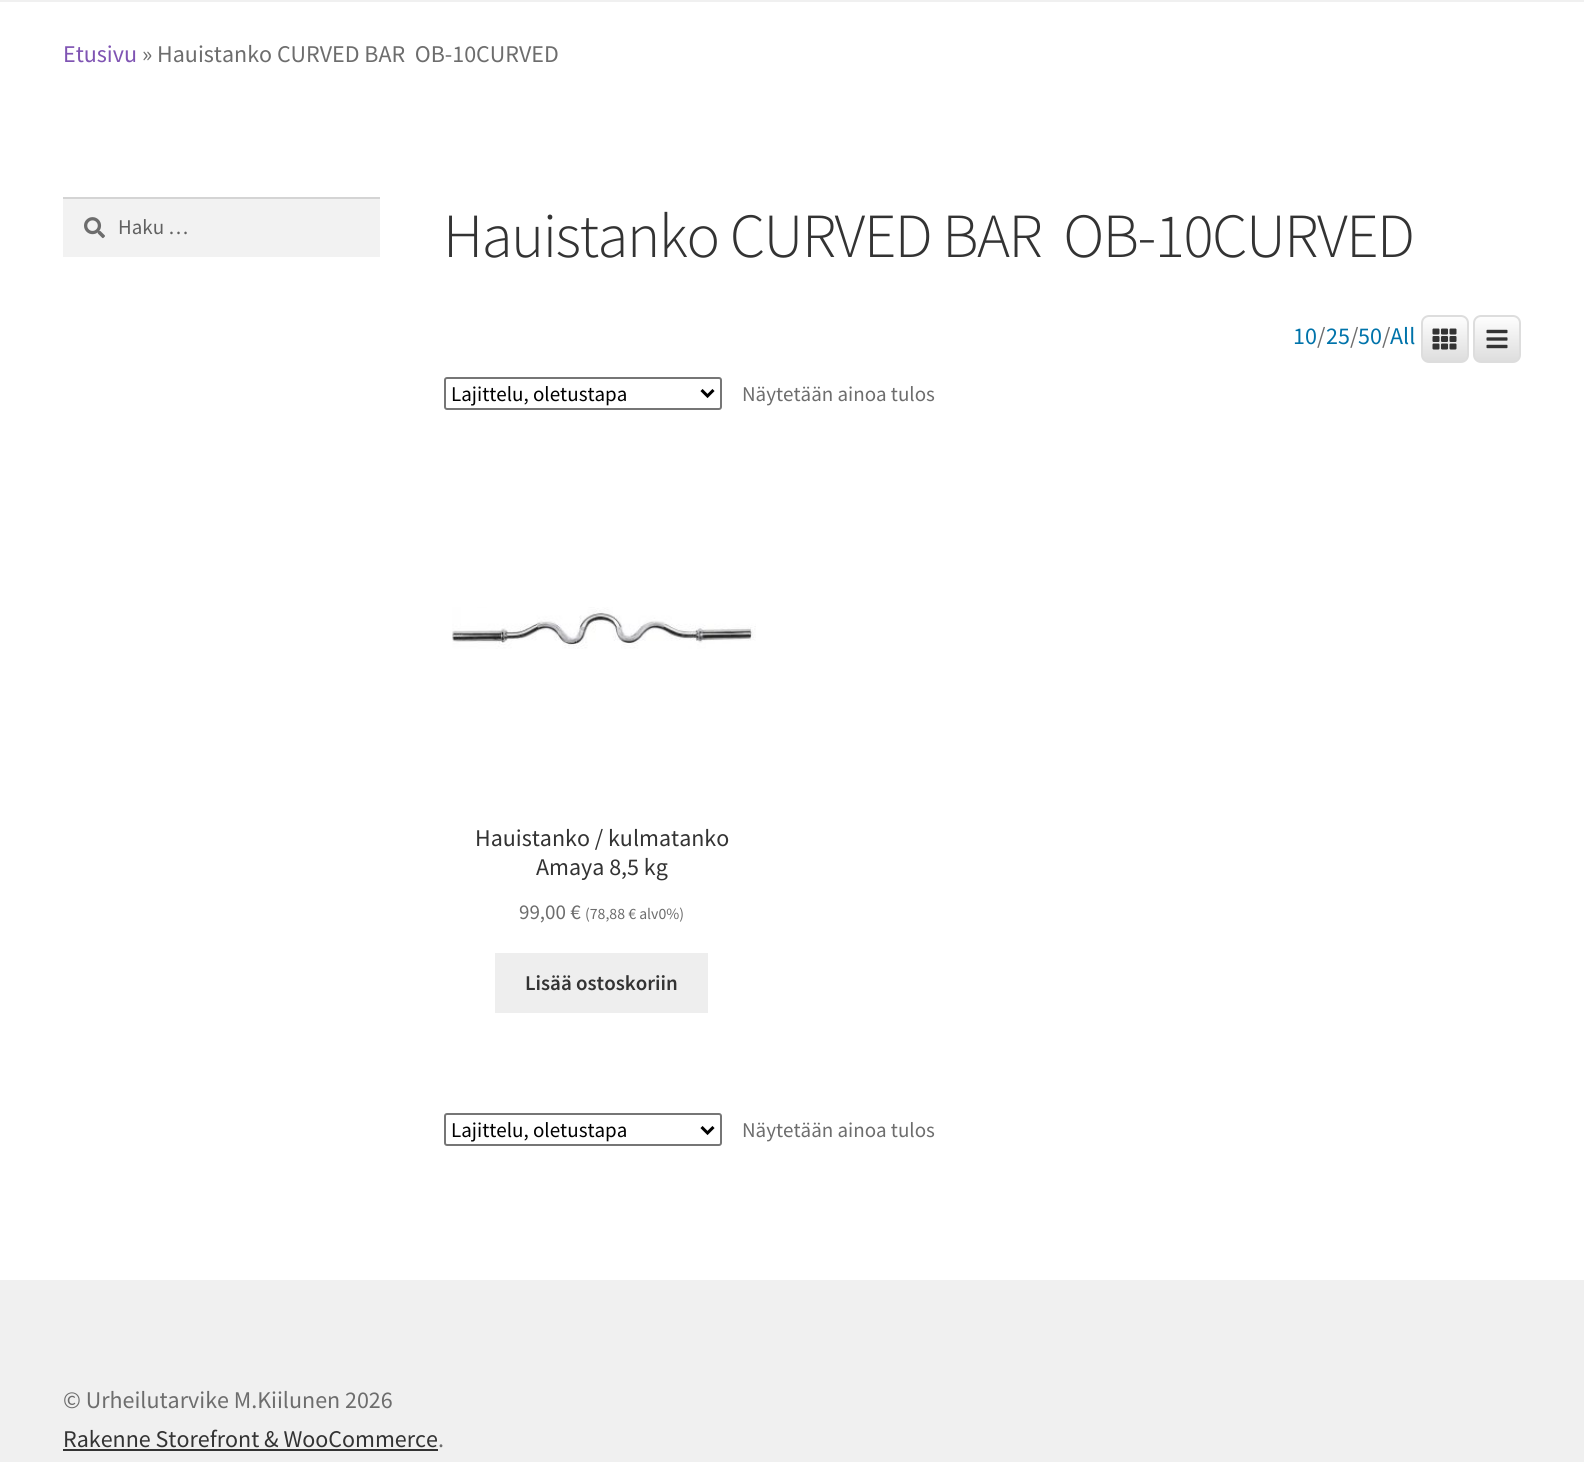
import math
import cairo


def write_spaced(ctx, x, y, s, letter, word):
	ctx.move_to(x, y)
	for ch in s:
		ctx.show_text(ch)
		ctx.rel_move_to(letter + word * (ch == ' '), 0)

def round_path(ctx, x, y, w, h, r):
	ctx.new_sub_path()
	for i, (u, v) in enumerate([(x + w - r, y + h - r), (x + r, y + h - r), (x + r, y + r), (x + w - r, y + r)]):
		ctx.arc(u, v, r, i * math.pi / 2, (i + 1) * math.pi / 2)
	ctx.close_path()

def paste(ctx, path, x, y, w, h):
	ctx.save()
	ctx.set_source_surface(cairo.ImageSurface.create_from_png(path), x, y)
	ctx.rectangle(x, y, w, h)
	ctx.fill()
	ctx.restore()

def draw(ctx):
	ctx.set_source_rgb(1, 1, 1)
	ctx.paint()
	ctx.set_source_rgb(0.941, 0.941, 0.941)
	ctx.rectangle(0, 0, 1584, 2)
	ctx.fill()
	ctx.select_font_face('Source Sans Pro')
	ctx.set_font_size(24)
	ctx.set_source_rgb(0.498, 0.329, 0.702)
	ctx.move_to(63, 62)
	ctx.show_text('Etusivu')
	ctx.set_source_rgb(0.427, 0.427, 0.427)
	ctx.move_to(142, 62)
	ctx.show_text('» Hauistanko CURVED BAR  OB-10CURVED')
	ctx.set_source_rgb(0.949, 0.949, 0.949)
	ctx.rectangle(63, 199, 317, 58)
	ctx.fill()
	paste(ctx, 'media/1.png', 84, 217, 21, 22)
	ctx.set_source_rgb(0.831, 0.831, 0.831)
	ctx.rectangle(63, 197, 317, 2)
	ctx.fill()
	ctx.set_font_size(21)
	ctx.set_source_rgb(0.38, 0.38, 0.38)
	ctx.move_to(118, 234)
	ctx.show_text('Haku …')
	ctx.select_font_face('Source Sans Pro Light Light')
	ctx.set_font_size(62.8)
	ctx.set_source_rgb(0.2, 0.2, 0.2)
	write_spaced(ctx, 443, 257, 'Hauistanko CURVED BAR  OB-10CURVED', -1.5, 0)
	ctx.select_font_face('Source Sans Pro')
	ctx.set_font_size(24)
	ctx.set_source_rgb(0, 0.451, 0.667)
	ctx.move_to(1293, 344)
	ctx.show_text('10')
	ctx.set_source_rgb(0.427, 0.427, 0.427)
	ctx.move_to(1317, 344)
	ctx.show_text('/')
	ctx.set_source_rgb(0, 0.451, 0.667)
	ctx.move_to(1326, 344)
	ctx.show_text('25')
	ctx.set_source_rgb(0.427, 0.427, 0.427)
	ctx.move_to(1350, 344)
	ctx.show_text('/')
	ctx.set_source_rgb(0, 0.451, 0.667)
	ctx.move_to(1358, 344)
	ctx.show_text('50')
	ctx.set_source_rgb(0.427, 0.427, 0.427)
	ctx.move_to(1382, 344)
	ctx.show_text('/')
	ctx.set_source_rgb(0, 0.451, 0.667)
	ctx.move_to(1390, 344)
	ctx.show_text('All')
	gradient = cairo.LinearGradient(1445, 315, 1445, 363)
	gradient.add_color_stop_rgba(0, 1, 1, 1, 1)
	gradient.add_color_stop_rgba(1, 0.863, 0.863, 0.863, 1)
	ctx.set_source(gradient)
	round_path(ctx, 1422, 316, 46, 46, 7)
	ctx.fill_preserve()
	ctx.set_source_rgb(0.867, 0.867, 0.867)
	ctx.stroke()
	paste(ctx, 'media/2.png', 1432, 328, 25, 22)
	gradient = cairo.LinearGradient(1497, 315, 1497, 363)
	gradient.add_color_stop_rgba(0, 1, 1, 1, 1)
	gradient.add_color_stop_rgba(1, 0.863, 0.863, 0.863, 1)
	ctx.set_source(gradient)
	round_path(ctx, 1474, 316, 46, 46, 7)
	ctx.fill_preserve()
	ctx.set_source_rgb(0.867, 0.867, 0.867)
	ctx.stroke()
	paste(ctx, 'media/3.png', 1486, 329, 22, 20)
	round_path(ctx, 445, 378, 276, 31, 2)
	ctx.set_source_rgb(0.463, 0.463, 0.463)
	ctx.stroke()
	ctx.new_path()
	ctx.move_to(701.5, 390)
	ctx.line_to(707.5, 396)
	ctx.line_to(713.5, 390)
	ctx.set_source_rgb(0, 0, 0)
	ctx.set_line_width(3)
	ctx.stroke()
	ctx.set_font_size(21)
	ctx.move_to(451, 401)
	ctx.show_text('Lajittelu, oletustapa')
	ctx.set_source_rgb(0.427, 0.427, 0.427)
	ctx.move_to(742, 401)
	ctx.show_text('Näytetään ainoa tulos')
	paste(ctx, 'media/4.png', 452, 607, 304, 42)
	ctx.set_font_size(24)
	ctx.set_source_rgb(0.2, 0.2, 0.2)
	ctx.move_to(475, 846)
	ctx.show_text('Hauistanko / kulmatanko')
	ctx.move_to(536, 875)
	ctx.show_text('Amaya 8,5 kg')
	ctx.set_font_size(21)
	ctx.set_source_rgb(0.427, 0.427, 0.427)
	ctx.move_to(519, 919)
	ctx.show_text('99,00 €')
	ctx.set_font_size(15.75)
	ctx.move_to(585, 919)
	ctx.show_text('(78,88 € alv0%)')
	ctx.set_source_rgb(0.933, 0.933, 0.933)
	ctx.rectangle(495, 953, 213, 60)
	ctx.fill()
	ctx.select_font_face('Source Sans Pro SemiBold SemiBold')
	ctx.set_font_size(21)
	ctx.set_source_rgb(0.2, 0.2, 0.2)
	ctx.move_to(525, 990)
	ctx.show_text('Lisää ostoskoriin')
	round_path(ctx, 445, 1114, 276, 31, 2)
	ctx.set_source_rgb(0.463, 0.463, 0.463)
	ctx.set_line_width(2)
	ctx.stroke()
	ctx.new_path()
	ctx.move_to(701.5, 1127)
	ctx.line_to(707.5, 1133)
	ctx.line_to(713.5, 1127)
	ctx.set_source_rgb(0, 0, 0)
	ctx.set_line_width(3)
	ctx.stroke()
	ctx.select_font_face('Source Sans Pro')
	ctx.move_to(451, 1137)
	ctx.show_text('Lajittelu, oletustapa')
	ctx.set_source_rgb(0.427, 0.427, 0.427)
	ctx.move_to(742, 1137)
	ctx.show_text('Näytetään ainoa tulos')
	ctx.set_source_rgb(0.941, 0.941, 0.941)
	ctx.rectangle(0, 1280, 1584, 182)
	ctx.fill()
	ctx.set_font_size(24)
	ctx.set_source_rgb(0.427, 0.427, 0.427)
	ctx.move_to(63, 1408)
	ctx.show_text('© Urheilutarvike M.Kiilunen 2026')
	ctx.set_source_rgb(0.2, 0.2, 0.2)
	ctx.move_to(63, 1447)
	ctx.show_text('Rakenne Storefront & WooCommerce')
	ctx.rectangle(63, 1449, 375, 2)
	ctx.fill()
	ctx.set_source_rgb(0.427, 0.427, 0.427)
	ctx.move_to(438, 1447)
	ctx.show_text('.')


surface = cairo.ImageSurface(cairo.FORMAT_RGB24, 1584, 1462)
ctx = cairo.Context(surface)
options = cairo.FontOptions()
options.set_hint_metrics(cairo.HINT_METRICS_OFF)
options.set_hint_style(cairo.HINT_STYLE_NONE)
ctx.set_font_options(options)
ctx.set_miter_limit(4)
draw(ctx)
surface.write_to_png('image.png')
